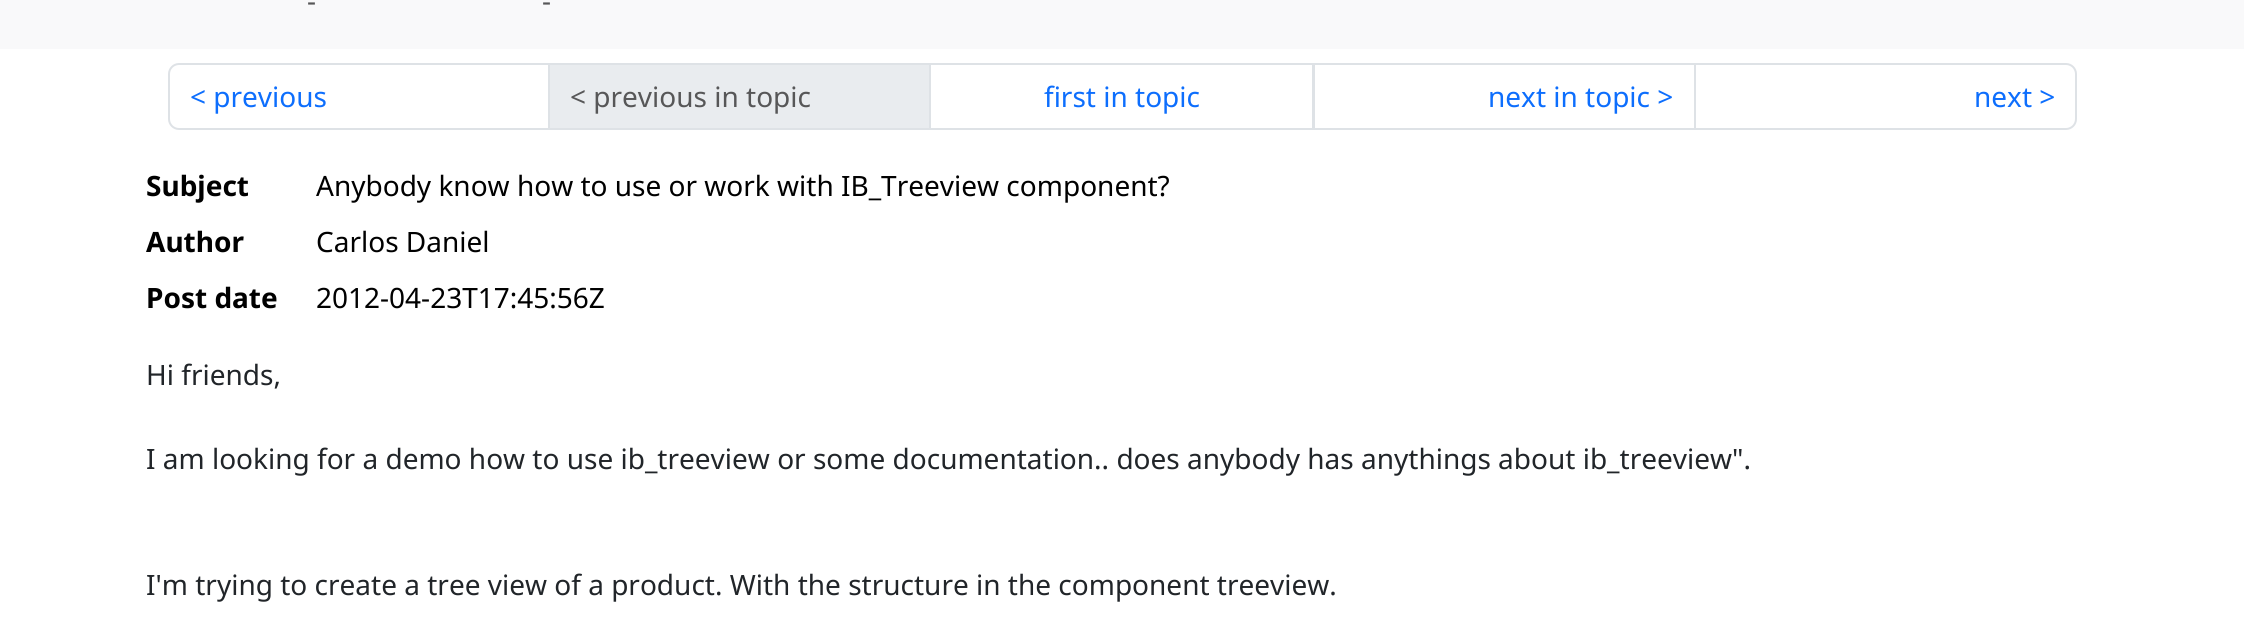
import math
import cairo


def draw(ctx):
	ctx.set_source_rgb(1, 1, 1)
	ctx.paint()
	ctx.set_source_rgb(0.973, 0.976, 0.98)
	ctx.rectangle(0, 0, 2244, 49)
	ctx.fill()
	ctx.select_font_face('Noto Sans')
	ctx.set_font_size(28)
	ctx.set_source_rgb(0.341, 0.341, 0.345)
	ctx.move_to(307, 11)
	ctx.show_text('-')
	ctx.move_to(542, 11)
	ctx.show_text('-')
	ctx.new_path()
	ctx.move_to(179, 64)
	ctx.line_to(549, 64)
	ctx.line_to(549, 129)
	ctx.line_to(179, 129)
	ctx.curve_to(173.5, 129, 169, 124.5, 169, 119)
	ctx.line_to(169, 74)
	ctx.curve_to(169, 68.5, 173.5, 64, 179, 64)
	ctx.close_path()
	ctx.set_source_rgb(0.871, 0.886, 0.902)
	ctx.stroke()
	ctx.set_source_rgb(0.051, 0.431, 0.992)
	ctx.move_to(190, 107)
	ctx.show_text('< previous')
	ctx.set_source_rgb(0.914, 0.925, 0.937)
	ctx.rectangle(549, 64, 381, 65)
	ctx.fill_preserve()
	ctx.set_source_rgb(0.871, 0.886, 0.902)
	ctx.stroke()
	ctx.set_source_rgb(0.341, 0.341, 0.345)
	ctx.move_to(570, 107)
	ctx.show_text('< previous in topic')
	ctx.rectangle(930, 64, 383, 65)
	ctx.set_source_rgb(0.871, 0.886, 0.902)
	ctx.stroke()
	ctx.set_source_rgb(0.051, 0.431, 0.992)
	ctx.move_to(1044, 107)
	ctx.show_text('first in topic')
	ctx.rectangle(1314, 64, 381, 65)
	ctx.set_source_rgb(0.871, 0.886, 0.902)
	ctx.stroke()
	ctx.set_source_rgb(0.051, 0.431, 0.992)
	ctx.move_to(1488, 107)
	ctx.show_text('next in topic >')
	ctx.set_source_rgb(1, 1, 1)
	ctx.new_path()
	ctx.move_to(1695, 64)
	ctx.line_to(2066, 64)
	ctx.curve_to(2071.5, 64, 2076, 68.5, 2076, 74)
	ctx.line_to(2076, 119)
	ctx.curve_to(2076, 124.5, 2071.5, 129, 2066, 129)
	ctx.line_to(1695, 129)
	ctx.close_path()
	ctx.fill_preserve()
	ctx.set_source_rgb(0.871, 0.886, 0.902)
	ctx.stroke()
	ctx.set_source_rgb(0.051, 0.431, 0.992)
	ctx.move_to(1974, 107)
	ctx.show_text('next >')
	ctx.select_font_face('Noto Sans', cairo.FONT_SLANT_NORMAL, cairo.FONT_WEIGHT_BOLD)
	ctx.set_source_rgb(0, 0, 0)
	ctx.move_to(146, 196)
	ctx.show_text('Subject')
	ctx.select_font_face('Noto Sans')
	ctx.move_to(316, 196)
	ctx.show_text('Anybody know how to use or work with IB_Treeview component?')
	ctx.select_font_face('Noto Sans', cairo.FONT_SLANT_NORMAL, cairo.FONT_WEIGHT_BOLD)
	ctx.move_to(146, 252)
	ctx.show_text('Author')
	ctx.select_font_face('Noto Sans')
	ctx.move_to(316, 252)
	ctx.show_text('Carlos Daniel')
	ctx.select_font_face('Noto Sans', cairo.FONT_SLANT_NORMAL, cairo.FONT_WEIGHT_BOLD)
	ctx.move_to(146, 308)
	ctx.show_text('Post date')
	ctx.select_font_face('Noto Sans')
	ctx.move_to(316, 308)
	ctx.show_text('2012-04-23T17:45:56Z')
	ctx.set_source_rgb(0.129, 0.145, 0.161)
	for x, y, s in [
		(146, 385, 'Hi friends,'),
		(146, 469, 'I am looking for a demo how to use ib_treeview or some documentation.. does anybody has anythings about ib_treeview".'),
		(146, 595, 'I\'m trying to create a tree view of a product. With the structure in the component treeview.'),
	]:
		ctx.move_to(x, y)
		ctx.show_text(s)


surface = cairo.ImageSurface(cairo.FORMAT_RGB24, 2244, 623)
ctx = cairo.Context(surface)
options = cairo.FontOptions()
options.set_hint_metrics(cairo.HINT_METRICS_OFF)
options.set_hint_style(cairo.HINT_STYLE_NONE)
ctx.set_font_options(options)
ctx.set_miter_limit(4)
draw(ctx)
surface.write_to_png('image.png')
